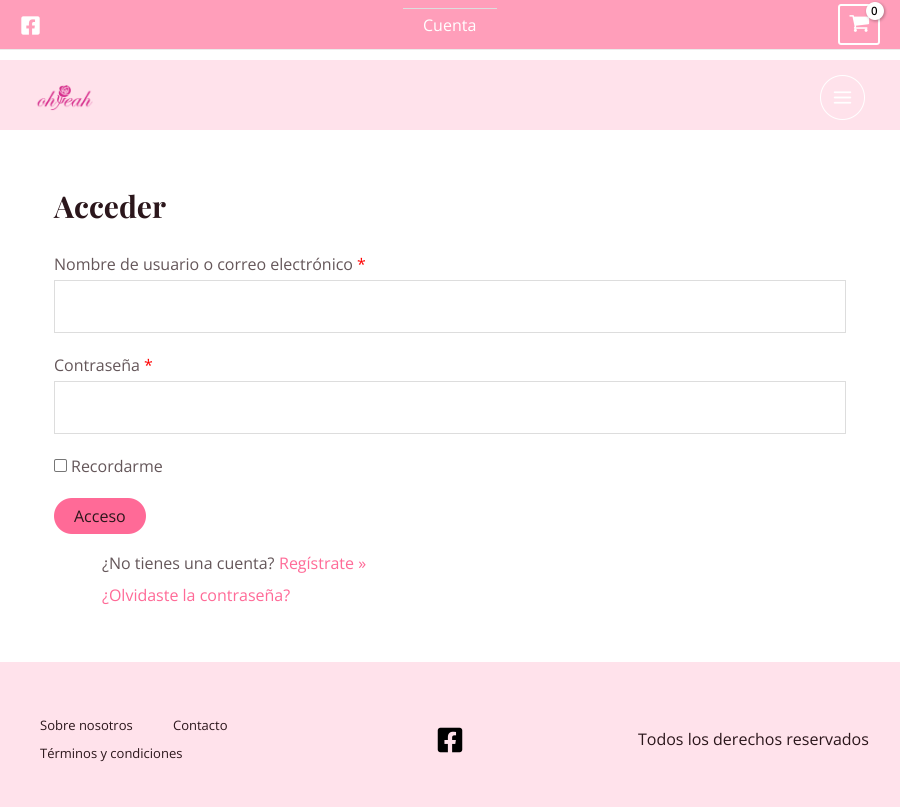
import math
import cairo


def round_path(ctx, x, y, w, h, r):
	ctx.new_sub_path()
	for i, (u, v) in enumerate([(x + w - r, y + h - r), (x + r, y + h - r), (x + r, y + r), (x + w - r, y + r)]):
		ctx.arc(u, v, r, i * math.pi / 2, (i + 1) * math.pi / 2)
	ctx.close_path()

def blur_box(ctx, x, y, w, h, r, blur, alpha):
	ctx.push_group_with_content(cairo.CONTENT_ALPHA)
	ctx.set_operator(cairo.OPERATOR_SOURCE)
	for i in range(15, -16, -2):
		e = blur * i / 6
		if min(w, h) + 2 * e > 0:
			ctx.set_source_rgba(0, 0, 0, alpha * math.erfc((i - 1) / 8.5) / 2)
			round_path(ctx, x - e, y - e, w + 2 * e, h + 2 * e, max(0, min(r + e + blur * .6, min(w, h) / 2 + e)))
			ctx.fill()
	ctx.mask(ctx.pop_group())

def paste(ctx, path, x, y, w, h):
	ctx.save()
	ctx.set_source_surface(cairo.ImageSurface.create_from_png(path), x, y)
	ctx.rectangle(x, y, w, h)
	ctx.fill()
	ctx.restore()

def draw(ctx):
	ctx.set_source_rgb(1, 1, 1)
	ctx.paint()
	ctx.set_source_rgb(1, 0.62, 0.729)
	ctx.rectangle(0, 0, 900, 49)
	ctx.fill()
	ctx.set_source_rgb(0.918, 0.918, 0.918)
	ctx.rectangle(0, 49, 900, 1)
	ctx.fill()
	round_path(ctx, 839, 5, 40, 39, 2)
	ctx.set_source_rgb(1, 1, 1)
	ctx.stroke()
	paste(ctx, 'media/1.png', 849, 15, 21, 17)
	ctx.set_source_rgb(0, 0, 0)
	blur_box(ctx, 867, 3, 18, 18, 9, 1.5, 0.3)
	ctx.set_source_rgb(1, 1, 1)
	ctx.arc(875, 11, 9, 0, 2 * math.pi)
	ctx.fill()
	ctx.select_font_face('Open Sans', cairo.FONT_SLANT_NORMAL, cairo.FONT_WEIGHT_BOLD)
	ctx.set_font_size(11)
	ctx.set_source_rgb(0, 0, 0)
	ctx.move_to(871, 15)
	ctx.show_text('0')
	paste(ctx, 'media/2.png', 21, 16, 19, 19)
	ctx.set_source_rgb(0.867, 0.867, 0.867)
	ctx.rectangle(403, 8, 94, 1)
	ctx.fill()
	ctx.select_font_face('Open Sans')
	ctx.set_font_size(16)
	ctx.set_source_rgb(1, 1, 1)
	ctx.move_to(423, 31)
	ctx.show_text('Cuenta')
	ctx.set_source_rgb(1, 0.886, 0.918)
	ctx.rectangle(0, 60, 900, 70)
	ctx.fill()
	paste(ctx, 'media/3.png', 36, 85, 57, 26)
	ctx.arc(842.5, 97.5, 22, 0, 2 * math.pi)
	ctx.set_source_rgb(1, 1, 1)
	ctx.set_line_width(1)
	ctx.stroke()
	paste(ctx, 'media/4.png', 833, 91, 19, 13)
	ctx.select_font_face('Playfair Display', cairo.FONT_SLANT_NORMAL, cairo.FONT_WEIGHT_BOLD)
	ctx.set_font_size(30)
	ctx.set_source_rgb(0.169, 0.086, 0.106)
	ctx.move_to(54, 218)
	ctx.show_text('Acceder')
	ctx.select_font_face('Open Sans')
	ctx.set_font_size(16)
	ctx.set_source_rgb(0.392, 0.337, 0.349)
	ctx.move_to(54, 270)
	ctx.show_text('Nombre de usuario o correo electrónico')
	ctx.set_source_rgb(1, 0, 0)
	ctx.move_to(357, 270)
	ctx.show_text('*')
	ctx.rectangle(54.5, 280.5, 791, 52)
	ctx.set_source_rgb(0.867, 0.867, 0.867)
	ctx.stroke()
	ctx.set_source_rgb(0.392, 0.337, 0.349)
	ctx.move_to(54, 371)
	ctx.show_text('Contraseña')
	ctx.set_source_rgb(1, 0, 0)
	ctx.move_to(144, 371)
	ctx.show_text('*')
	ctx.rectangle(54.5, 381.5, 791, 52)
	ctx.set_source_rgb(0.867, 0.867, 0.867)
	ctx.stroke()
	round_path(ctx, 54.5, 459.5, 12, 12, 1.5)
	ctx.set_source_rgb(0.463, 0.463, 0.463)
	ctx.stroke()
	ctx.set_source_rgb(0.392, 0.337, 0.349)
	ctx.move_to(71, 472)
	ctx.show_text('Recordarme')
	ctx.set_source_rgb(1, 0.416, 0.592)
	round_path(ctx, 54, 498, 92, 36, 18)
	ctx.fill()
	ctx.set_source_rgb(0.169, 0.086, 0.106)
	ctx.move_to(74, 522)
	ctx.show_text('Acceso')
	ctx.set_source_rgb(0.392, 0.337, 0.349)
	ctx.move_to(102, 569)
	ctx.show_text('¿No tienes una cuenta?')
	ctx.set_source_rgb(1, 0.416, 0.592)
	ctx.move_to(279, 569)
	ctx.show_text('Regístrate »')
	ctx.move_to(102, 601)
	ctx.show_text('¿Olvidaste la contraseña?')
	ctx.set_source_rgb(1, 0.886, 0.918)
	ctx.rectangle(0, 662, 900, 145)
	ctx.fill()
	ctx.set_font_size(13)
	ctx.set_source_rgb(0.169, 0.086, 0.106)
	for x, y, s in [
		(40, 730, 'Sobre nosotros'),
		(173, 730, 'Contacto'),
		(40, 758, 'Términos y condiciones'),
	]:
		ctx.move_to(x, y)
		ctx.show_text(s)
	paste(ctx, 'media/5.png', 437, 727, 26, 26)
	ctx.set_font_size(16)
	ctx.move_to(638, 745)
	ctx.show_text('Todos los derechos reservados')


surface = cairo.ImageSurface(cairo.FORMAT_RGB24, 900, 807)
ctx = cairo.Context(surface)
options = cairo.FontOptions()
options.set_hint_metrics(cairo.HINT_METRICS_OFF)
options.set_hint_style(cairo.HINT_STYLE_NONE)
ctx.set_font_options(options)
ctx.set_miter_limit(4)
draw(ctx)
surface.write_to_png('image.png')
